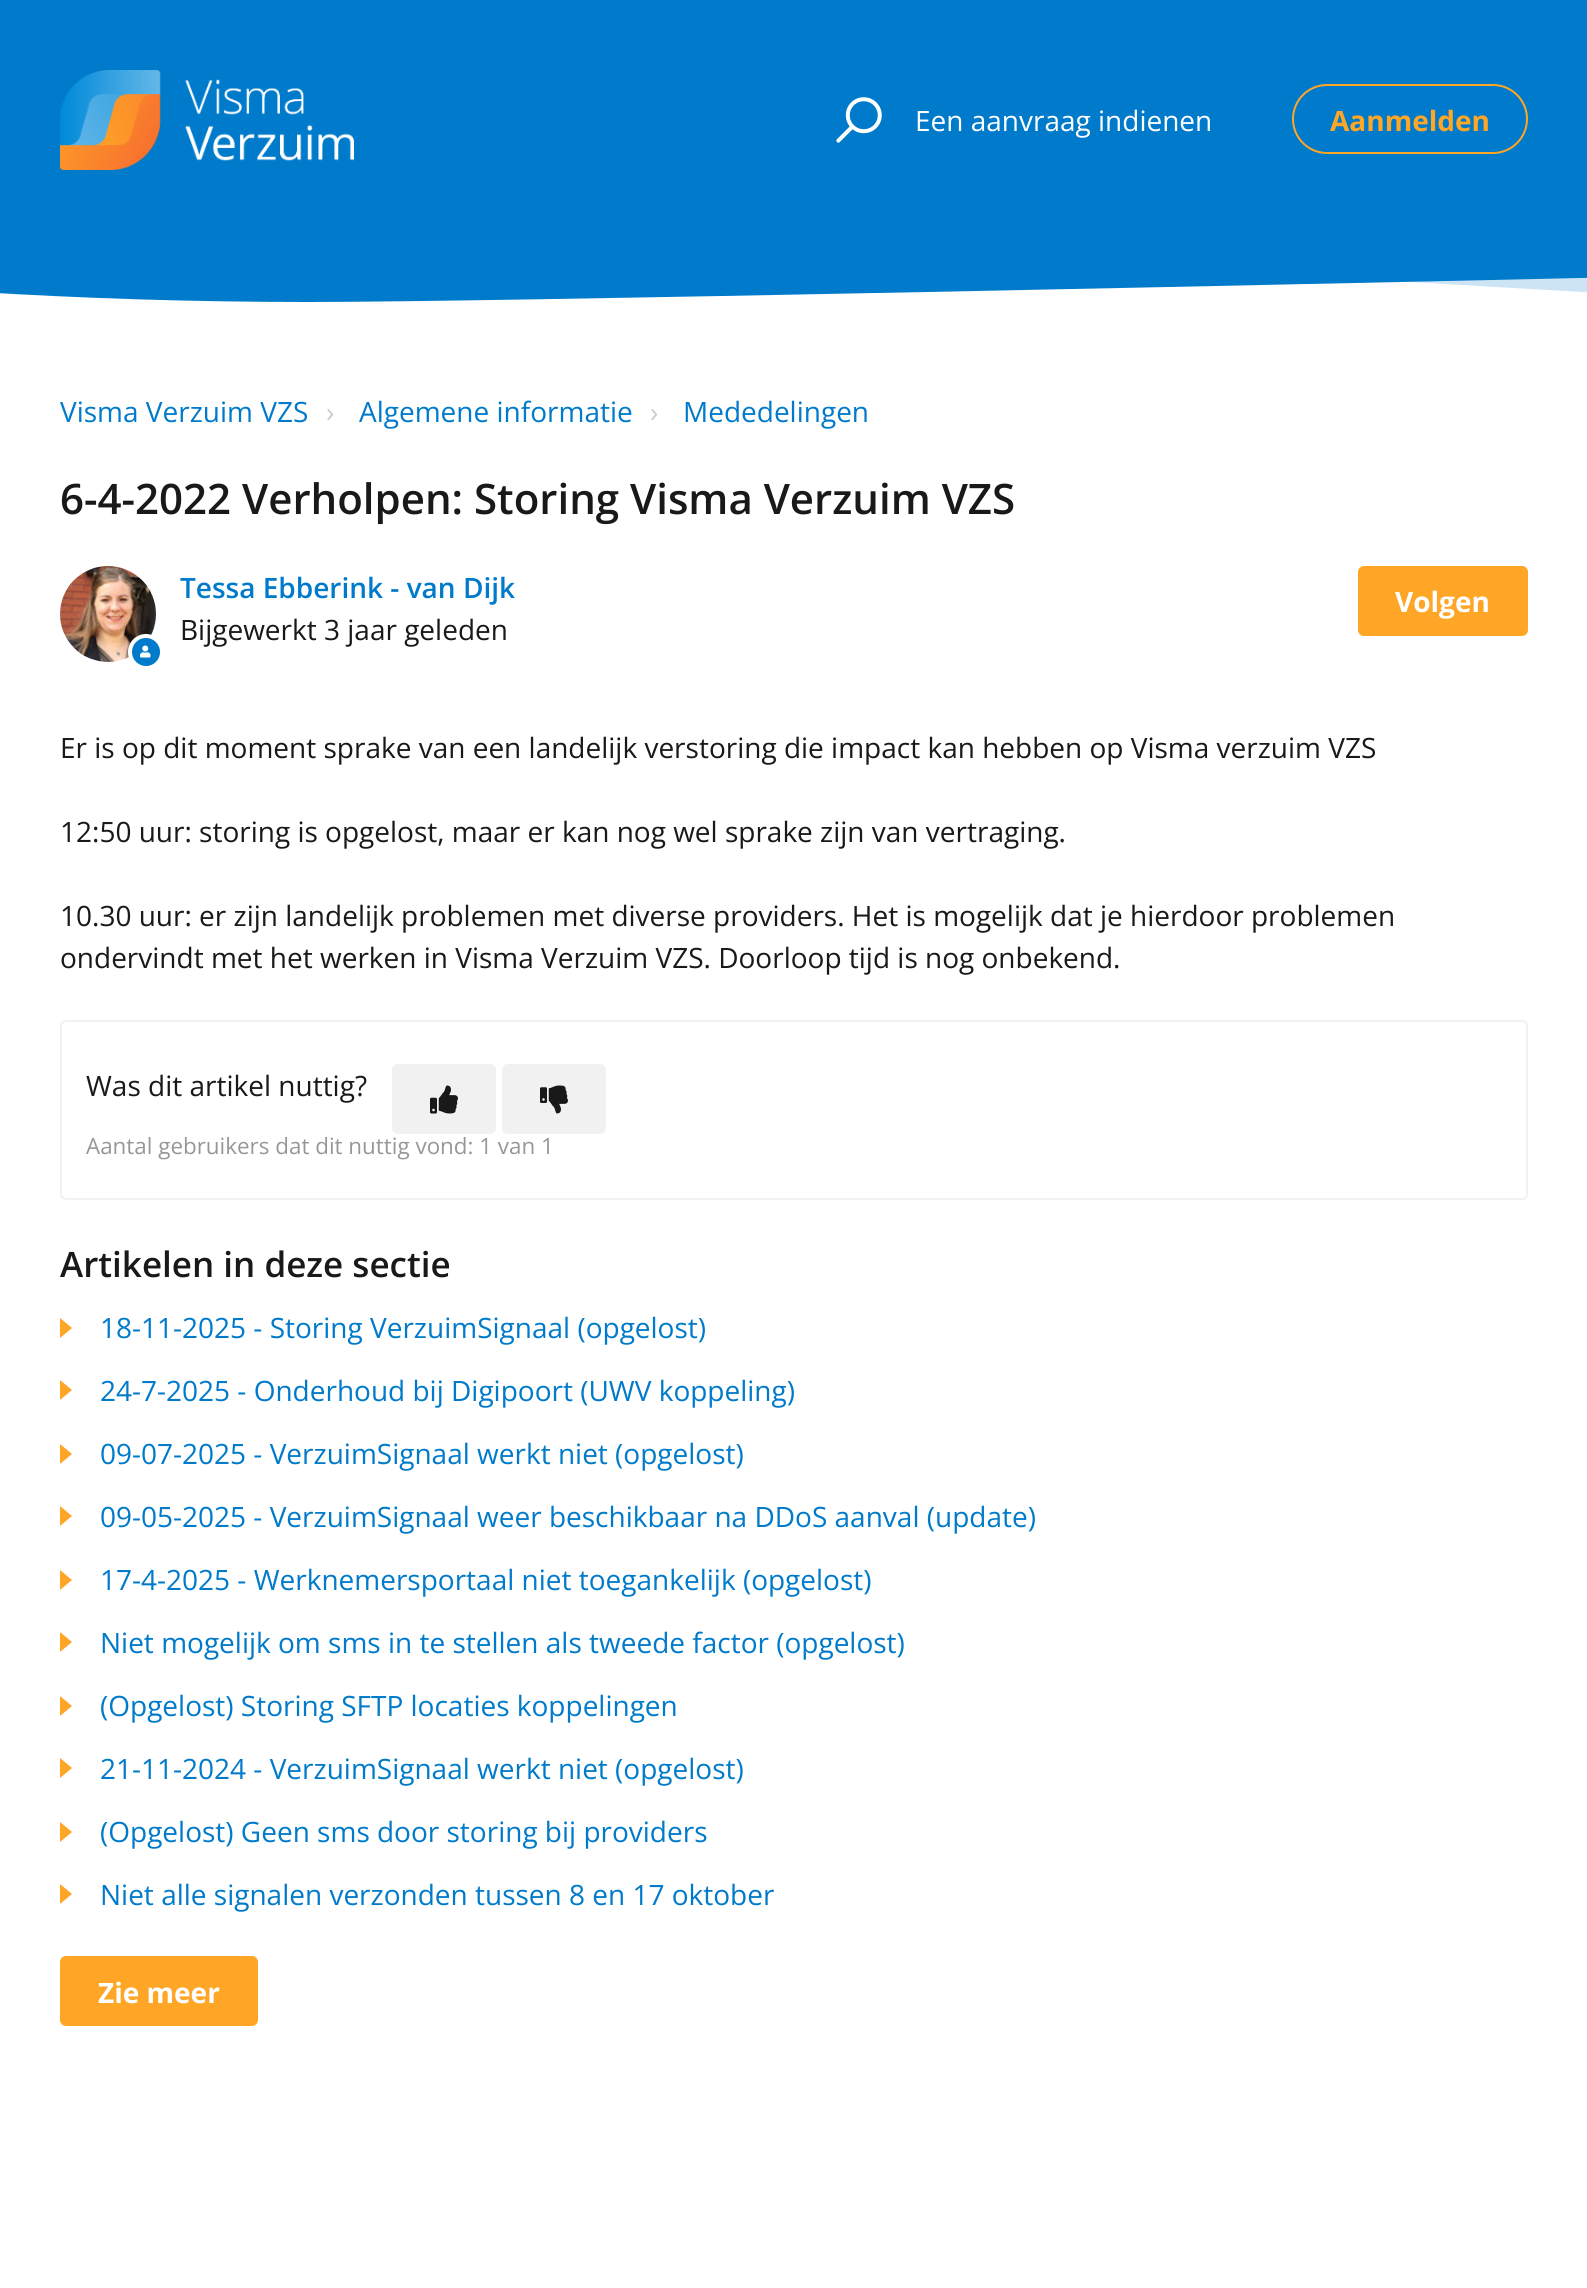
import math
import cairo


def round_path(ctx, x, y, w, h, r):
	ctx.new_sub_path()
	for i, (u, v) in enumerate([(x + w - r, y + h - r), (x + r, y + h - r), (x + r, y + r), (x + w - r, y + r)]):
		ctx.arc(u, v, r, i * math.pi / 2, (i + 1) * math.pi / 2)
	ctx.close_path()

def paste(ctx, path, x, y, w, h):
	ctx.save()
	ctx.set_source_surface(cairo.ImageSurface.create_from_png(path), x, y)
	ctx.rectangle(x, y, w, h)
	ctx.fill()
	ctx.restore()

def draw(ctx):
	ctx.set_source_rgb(1, 1, 1)
	ctx.paint()
	ctx.set_source_rgb(0, 0.478, 0.792)
	ctx.rectangle(0, 0, 1587, 238)
	ctx.fill()
	paste(ctx, 'media/1.png', 60, 70, 294, 100)
	paste(ctx, 'media/2.png', 836, 97, 46, 46)
	ctx.select_font_face('Open Sans')
	ctx.set_font_size(28)
	ctx.set_source_rgb(1, 1, 1)
	ctx.move_to(915, 131)
	ctx.show_text('Een aanvraag indienen')
	round_path(ctx, 1293, 85, 234, 68, 34)
	ctx.set_source_rgb(1, 0.651, 0.149)
	ctx.stroke()
	ctx.select_font_face('Open Sans', cairo.FONT_SLANT_NORMAL, cairo.FONT_WEIGHT_BOLD)
	ctx.move_to(1330, 131)
	ctx.show_text('Aanmelden')
	ctx.set_source_rgb(0, 0.478, 0.792)
	ctx.new_path()
	ctx.move_to(308, 302)
	ctx.curve_to(666, 302, 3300, 238, 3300, 238)
	ctx.line_to(-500, 238)
	ctx.curve_to(-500, 238, -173, 302, 308, 302)
	ctx.close_path()
	ctx.fill()
	ctx.save()
	ctx.rectangle(0, 238, 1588, 94)
	ctx.clip()
	ctx.set_source_rgba(0, 0.478, 0.792, 0.2)
	ctx.new_path()
	ctx.move_to(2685, 332)
	ctx.curve_to(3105, 332, 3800, 180, 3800, 180)
	ctx.line_to(0, 180)
	ctx.curve_to(0, 180, 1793, 332, 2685, 332)
	ctx.close_path()
	ctx.fill()
	ctx.restore()
	ctx.select_font_face('Open Sans')
	ctx.move_to(60, 422)
	ctx.show_text('Visma Verzuim VZS')
	ctx.set_source_rgb(0.8, 0.8, 0.8)
	ctx.move_to(326, 422)
	ctx.show_text('›')
	ctx.set_source_rgb(0, 0.478, 0.792)
	ctx.move_to(359, 422)
	ctx.show_text('Algemene informatie')
	ctx.set_source_rgb(0.8, 0.8, 0.8)
	ctx.move_to(650, 422)
	ctx.show_text('›')
	ctx.set_source_rgb(0, 0.478, 0.792)
	ctx.move_to(683, 422)
	ctx.show_text('Mededelingen')
	ctx.select_font_face('Open Sans SemiBold')
	ctx.set_font_size(42)
	ctx.set_source_rgb(0.098, 0.098, 0.098)
	ctx.move_to(60, 514)
	ctx.show_text('6-4-2022 Verholpen: Storing Visma Verzuim VZS')
	paste(ctx, 'media/3.png', 60, 566, 96, 96)
	ctx.set_source_rgb(0, 0.478, 0.792)
	ctx.arc(146, 652, 16, 0, 2 * math.pi)
	ctx.fill_preserve()
	ctx.set_source_rgb(1, 1, 1)
	ctx.set_line_width(4)
	ctx.stroke()
	paste(ctx, 'media/4.png', 140, 645, 11, 13)
	ctx.set_font_size(28)
	ctx.set_source_rgb(0, 0.478, 0.792)
	ctx.move_to(180, 598)
	ctx.show_text('Tessa Ebberink - van Dijk')
	ctx.select_font_face('Open Sans')
	ctx.set_source_rgb(0.098, 0.098, 0.098)
	ctx.move_to(180, 640)
	ctx.show_text('Bijgewerkt 3 jaar geleden')
	ctx.set_source_rgb(1, 0.651, 0.149)
	round_path(ctx, 1359, 567, 168, 68, 5)
	ctx.fill_preserve()
	ctx.set_line_width(2)
	ctx.stroke()
	ctx.select_font_face('Open Sans', cairo.FONT_SLANT_NORMAL, cairo.FONT_WEIGHT_BOLD)
	ctx.set_source_rgb(1, 1, 1)
	ctx.move_to(1395, 612)
	ctx.show_text('Volgen')
	ctx.select_font_face('Open Sans')
	ctx.set_source_rgb(0.098, 0.098, 0.098)
	for x, y, s in [
		(60, 758, 'Er is op dit moment sprake van een landelijk verstoring die impact kan hebben op Visma verzuim VZS'),
		(60, 842, '12:50 uur: storing is opgelost, maar er kan nog wel sprake zijn van vertraging.'),
		(60, 926, '10.30 uur: er zijn landelijk problemen met diverse providers. Het is mogelijk dat je hierdoor problemen'),
		(60, 968, 'ondervindt met het werken in Visma Verzuim VZS. Doorloop tijd is nog onbekend.'),
	]:
		ctx.move_to(x, y)
		ctx.show_text(s)
	round_path(ctx, 61, 1021, 1466, 178, 5)
	ctx.set_source_rgb(0.945, 0.945, 0.945)
	ctx.stroke()
	ctx.set_source_rgb(0.098, 0.098, 0.098)
	ctx.move_to(86, 1096)
	ctx.show_text('Was dit artikel nuttig?')
	ctx.set_source_rgb(0.945, 0.945, 0.945)
	round_path(ctx, 393, 1065, 102, 68, 5)
	ctx.fill_preserve()
	ctx.stroke()
	paste(ctx, 'media/5.png', 430, 1085, 28, 29)
	round_path(ctx, 503, 1065, 102, 68, 5)
	ctx.fill_preserve()
	ctx.stroke()
	paste(ctx, 'media/6.png', 540, 1085, 28, 29)
	ctx.set_font_size(22.4)
	ctx.set_source_rgb(0.592, 0.592, 0.592)
	ctx.move_to(86, 1154)
	ctx.show_text('Aantal gebruikers dat dit nuttig vond: 1 van 1')
	ctx.select_font_face('Open Sans SemiBold')
	ctx.set_font_size(35)
	ctx.set_source_rgb(0.098, 0.098, 0.098)
	ctx.move_to(60, 1277)
	ctx.show_text('Artikelen in deze sectie')
	ctx.set_source_rgb(1, 0.651, 0.149)
	ctx.new_path()
	ctx.move_to(60, 1338)
	ctx.line_to(60, 1318)
	ctx.line_to(72, 1328)
	ctx.close_path()
	ctx.fill()
	ctx.select_font_face('Open Sans')
	ctx.set_font_size(28)
	ctx.set_source_rgb(0, 0.478, 0.792)
	ctx.move_to(100, 1338)
	ctx.show_text('18-11-2025 - Storing VerzuimSignaal (opgelost)')
	ctx.set_source_rgb(1, 0.651, 0.149)
	ctx.new_path()
	ctx.move_to(60, 1400)
	ctx.line_to(60, 1380)
	ctx.line_to(72, 1390)
	ctx.close_path()
	ctx.fill()
	ctx.set_source_rgb(0, 0.478, 0.792)
	ctx.move_to(100, 1401)
	ctx.show_text('24-7-2025 - Onderhoud bij Digipoort (UWV koppeling)')
	ctx.set_source_rgb(1, 0.651, 0.149)
	ctx.new_path()
	ctx.move_to(60, 1464)
	ctx.line_to(60, 1444)
	ctx.line_to(72, 1454)
	ctx.close_path()
	ctx.fill()
	ctx.set_source_rgb(0, 0.478, 0.792)
	ctx.move_to(100, 1464)
	ctx.show_text('09-07-2025 - VerzuimSignaal werkt niet (opgelost)')
	ctx.set_source_rgb(1, 0.651, 0.149)
	ctx.new_path()
	ctx.move_to(60, 1526)
	ctx.line_to(60, 1506)
	ctx.line_to(72, 1516)
	ctx.close_path()
	ctx.fill()
	ctx.set_source_rgb(0, 0.478, 0.792)
	ctx.move_to(100, 1527)
	ctx.show_text('09-05-2025 - VerzuimSignaal weer beschikbaar na DDoS aanval (update)')
	ctx.set_source_rgb(1, 0.651, 0.149)
	ctx.new_path()
	ctx.move_to(60, 1590)
	ctx.line_to(60, 1570)
	ctx.line_to(72, 1580)
	ctx.close_path()
	ctx.fill()
	ctx.set_source_rgb(0, 0.478, 0.792)
	ctx.move_to(100, 1590)
	ctx.show_text('17-4-2025 - Werknemersportaal niet toegankelijk (opgelost)')
	ctx.set_source_rgb(1, 0.651, 0.149)
	ctx.new_path()
	ctx.move_to(60, 1652)
	ctx.line_to(60, 1632)
	ctx.line_to(72, 1642)
	ctx.close_path()
	ctx.fill()
	ctx.set_source_rgb(0, 0.478, 0.792)
	ctx.move_to(100, 1653)
	ctx.show_text('Niet mogelijk om sms in te stellen als tweede factor (opgelost)')
	ctx.set_source_rgb(1, 0.651, 0.149)
	ctx.new_path()
	ctx.move_to(60, 1716)
	ctx.line_to(60, 1696)
	ctx.line_to(72, 1706)
	ctx.close_path()
	ctx.fill()
	ctx.set_source_rgb(0, 0.478, 0.792)
	ctx.move_to(100, 1716)
	ctx.show_text('(Opgelost) Storing SFTP locaties koppelingen')
	ctx.set_source_rgb(1, 0.651, 0.149)
	ctx.new_path()
	ctx.move_to(60, 1778)
	ctx.line_to(60, 1758)
	ctx.line_to(72, 1768)
	ctx.close_path()
	ctx.fill()
	ctx.set_source_rgb(0, 0.478, 0.792)
	ctx.move_to(100, 1779)
	ctx.show_text('21-11-2024 - VerzuimSignaal werkt niet (opgelost)')
	ctx.set_source_rgb(1, 0.651, 0.149)
	ctx.new_path()
	ctx.move_to(60, 1842)
	ctx.line_to(60, 1822)
	ctx.line_to(72, 1832)
	ctx.close_path()
	ctx.fill()
	ctx.set_source_rgb(0, 0.478, 0.792)
	ctx.move_to(100, 1842)
	ctx.show_text('(Opgelost) Geen sms door storing bij providers')
	ctx.set_source_rgb(1, 0.651, 0.149)
	ctx.new_path()
	ctx.move_to(60, 1904)
	ctx.line_to(60, 1884)
	ctx.line_to(72, 1894)
	ctx.close_path()
	ctx.fill()
	ctx.set_source_rgb(0, 0.478, 0.792)
	ctx.move_to(100, 1905)
	ctx.show_text('Niet alle signalen verzonden tussen 8 en 17 oktober')
	ctx.set_source_rgb(1, 0.651, 0.149)
	round_path(ctx, 61, 1957, 196, 68, 5)
	ctx.fill_preserve()
	ctx.stroke()
	ctx.select_font_face('Open Sans', cairo.FONT_SLANT_NORMAL, cairo.FONT_WEIGHT_BOLD)
	ctx.set_source_rgb(1, 1, 1)
	ctx.move_to(98, 2003)
	ctx.show_text('Zie meer')


surface = cairo.ImageSurface(cairo.FORMAT_RGB24, 1587, 2288)
ctx = cairo.Context(surface)
options = cairo.FontOptions()
options.set_hint_metrics(cairo.HINT_METRICS_OFF)
options.set_hint_style(cairo.HINT_STYLE_NONE)
ctx.set_font_options(options)
ctx.set_miter_limit(4)
draw(ctx)
surface.write_to_png('image.png')
